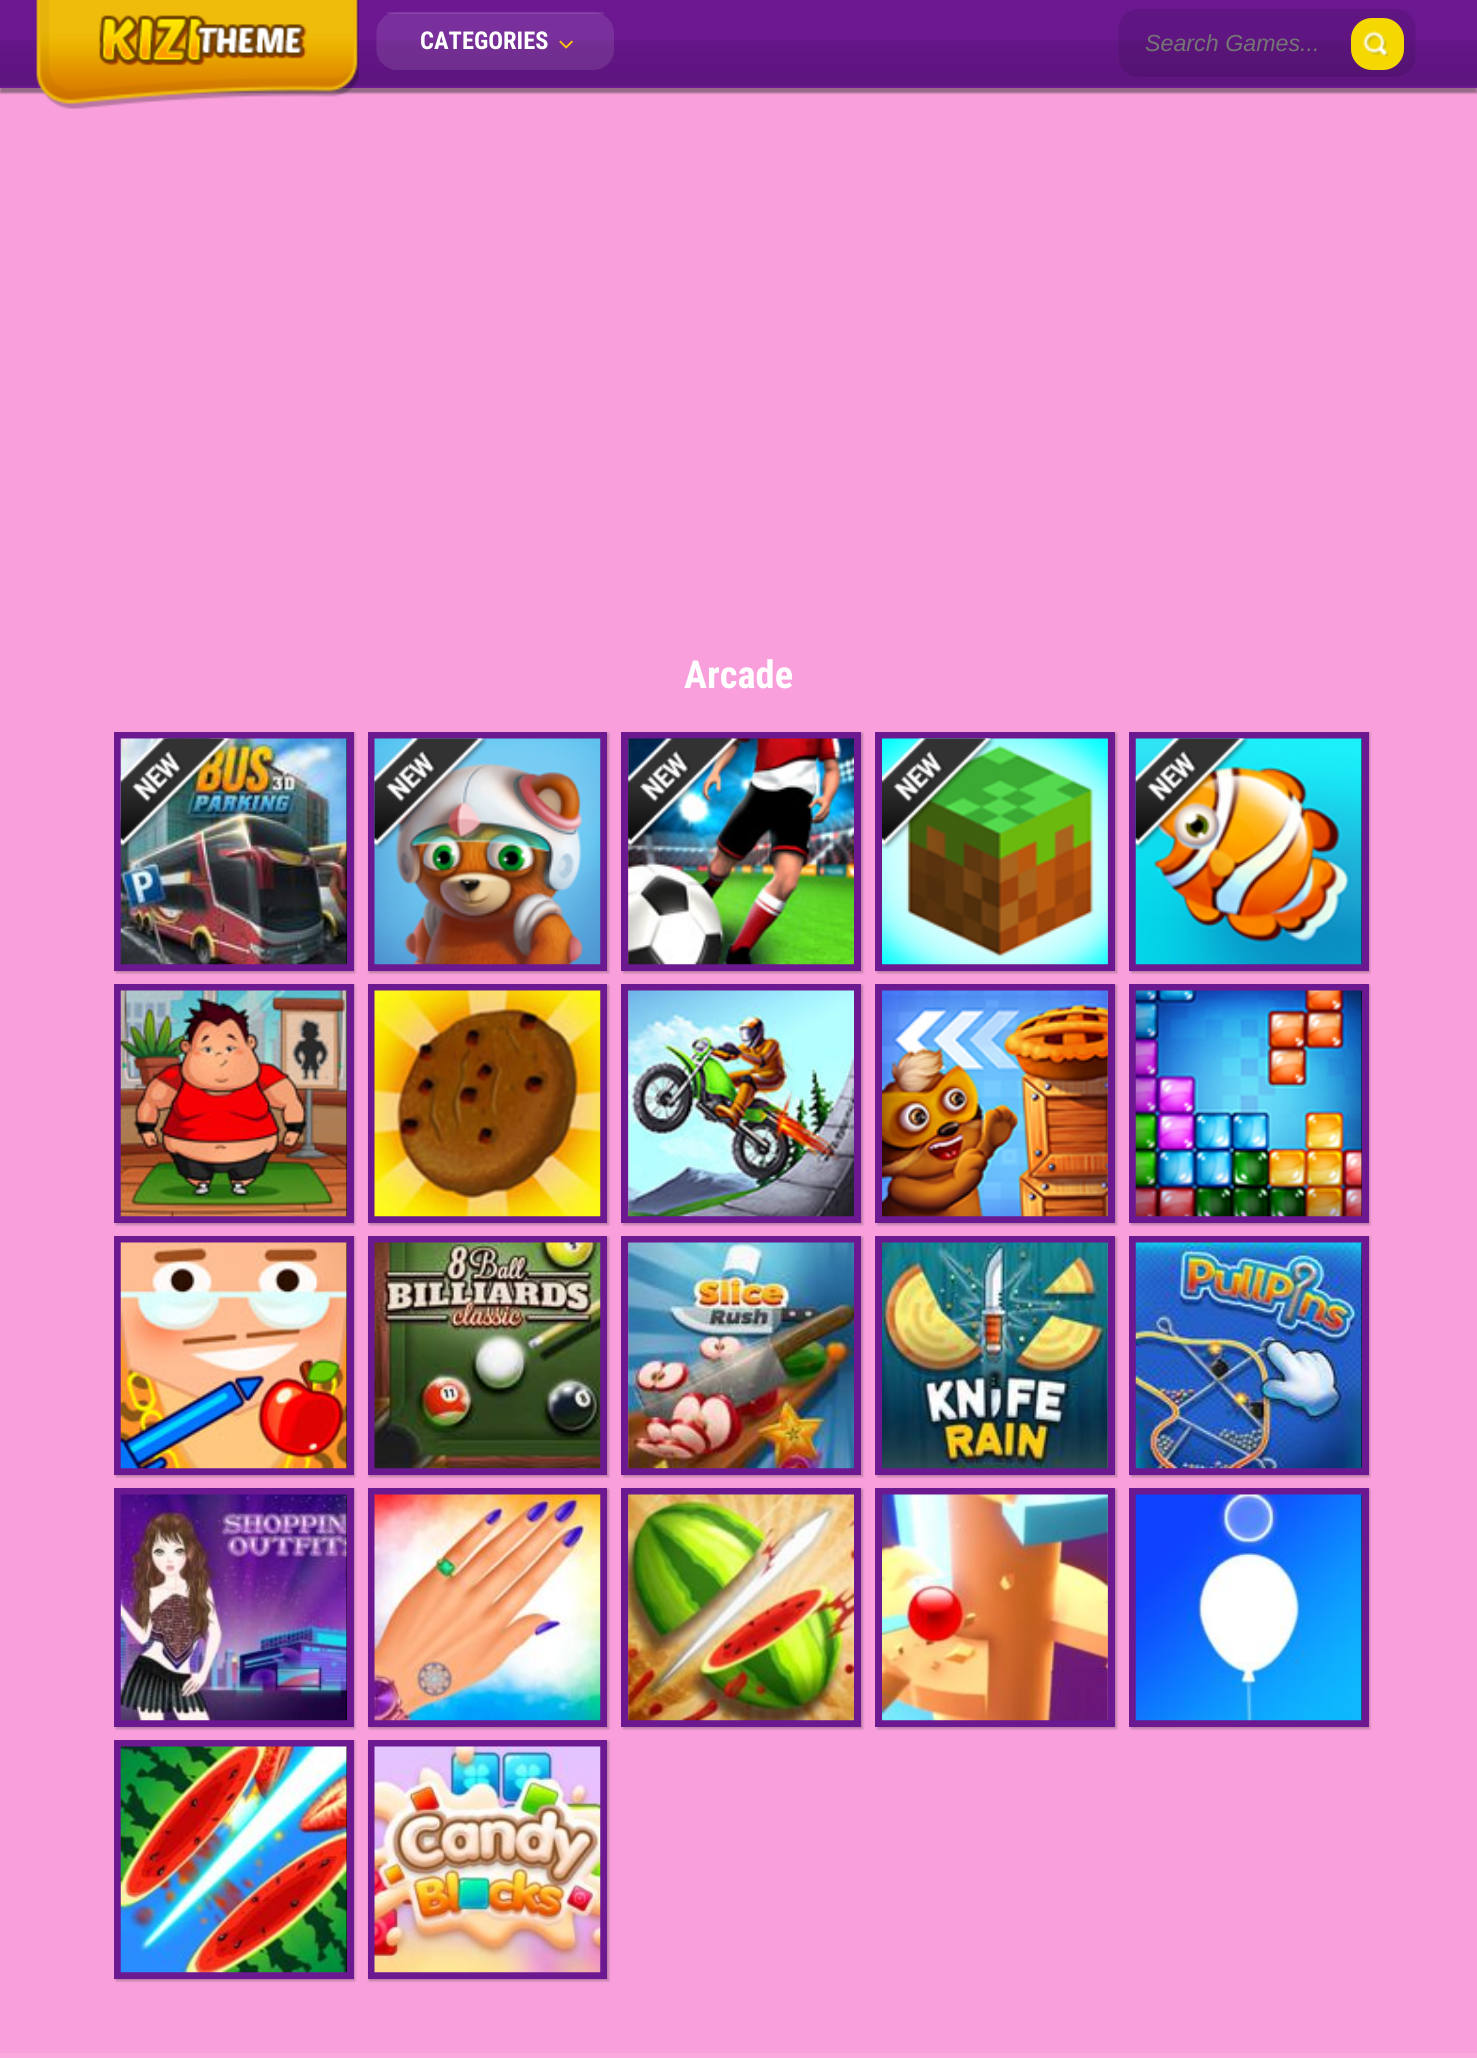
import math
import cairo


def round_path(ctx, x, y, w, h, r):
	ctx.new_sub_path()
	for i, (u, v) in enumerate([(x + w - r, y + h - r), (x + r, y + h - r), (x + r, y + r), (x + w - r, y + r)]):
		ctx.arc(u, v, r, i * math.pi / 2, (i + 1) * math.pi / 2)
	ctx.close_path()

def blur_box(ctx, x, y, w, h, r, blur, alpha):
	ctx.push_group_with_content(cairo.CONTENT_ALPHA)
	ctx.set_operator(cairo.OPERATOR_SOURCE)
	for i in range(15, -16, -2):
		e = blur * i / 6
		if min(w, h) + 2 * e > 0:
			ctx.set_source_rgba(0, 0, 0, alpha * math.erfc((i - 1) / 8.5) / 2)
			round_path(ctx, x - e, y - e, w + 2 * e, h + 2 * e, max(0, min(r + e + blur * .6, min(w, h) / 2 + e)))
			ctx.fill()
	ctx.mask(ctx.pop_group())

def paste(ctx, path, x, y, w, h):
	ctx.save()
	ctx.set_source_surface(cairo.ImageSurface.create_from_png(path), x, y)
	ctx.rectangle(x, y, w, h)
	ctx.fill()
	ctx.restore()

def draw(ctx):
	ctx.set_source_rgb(0.976, 0.624, 0.859)
	ctx.paint()
	ctx.set_source_rgb(0.196, 0.196, 0.196)
	blur_box(ctx, 0, 5, 1477, 88, 0, 1, 0.5)
	ctx.set_source_rgb(0.42, 0.094, 0.569)
	ctx.rectangle(0, 0, 1477, 88)
	ctx.fill()
	paste(ctx, 'media/1.png', 0, 40, 1477, 46)
	paste(ctx, 'media/2.png', 36, 0, 323, 109)
	paste(ctx, 'media/3.png', 376, 12, 238, 58)
	ctx.set_source_rgba(0.98, 0.98, 0.98, 0.1)
	ctx.rectangle(387, 12, 217, 2)
	ctx.fill()
	ctx.select_font_face('Roboto Condensed', cairo.FONT_SLANT_NORMAL, cairo.FONT_WEIGHT_BOLD)
	ctx.set_font_size(24.5)
	ctx.set_source_rgb(1, 1, 1)
	ctx.move_to(420, 49)
	ctx.show_text('CATEGORIES')
	paste(ctx, 'media/4.png', 559, 40, 14, 9)
	paste(ctx, 'media/5.png', 1118, 9, 298, 68)
	ctx.select_font_face('Liberation Sans', cairo.FONT_SLANT_ITALIC)
	ctx.set_font_size(23.25)
	ctx.set_source_rgb(0.459, 0.459, 0.459)
	ctx.move_to(1145, 51)
	ctx.show_text('Search Games...')
	ctx.set_source_rgb(0.957, 0.847, 0)
	round_path(ctx, 1351, 18, 53, 52, 21)
	ctx.fill()
	paste(ctx, 'media/6.png', 1363, 31, 25, 26)
	ctx.select_font_face('Roboto Condensed', cairo.FONT_SLANT_NORMAL, cairo.FONT_WEIGHT_BOLD)
	ctx.set_font_size(38.5)
	ctx.set_source_rgb(1, 1, 1)
	ctx.move_to(684, 688)
	ctx.show_text('Arcade')
	ctx.set_source_rgb(0.196, 0.196, 0.196)
	blur_box(ctx, 116, 733, 239, 240, 0, 1, 0.3)
	ctx.rectangle(117.5, 735.5, 233, 232)
	ctx.set_source_rgb(0.42, 0.094, 0.569)
	ctx.set_line_width(7)
	ctx.stroke()
	ctx.set_source_rgb(0, 0, 0)
	ctx.rectangle(346, 739, 1, 225)
	ctx.fill()
	paste(ctx, 'media/7.png', 120, 738, 227, 227)
	paste(ctx, 'media/8.png', 120, 738, 113, 111)
	ctx.set_source_rgb(0.196, 0.196, 0.196)
	blur_box(ctx, 369, 733, 240, 240, 0, 1, 0.3)
	ctx.rectangle(371.5, 735.5, 232, 232)
	ctx.set_source_rgb(0.42, 0.094, 0.569)
	ctx.stroke()
	paste(ctx, 'media/9.png', 374, 738, 227, 227)
	paste(ctx, 'media/10.png', 374, 738, 113, 111)
	ctx.set_source_rgb(0.196, 0.196, 0.196)
	blur_box(ctx, 623, 733, 240, 240, 0, 1, 0.3)
	ctx.rectangle(624.5, 735.5, 233, 232)
	ctx.set_source_rgb(0.42, 0.094, 0.569)
	ctx.stroke()
	paste(ctx, 'media/11.png', 628, 738, 226, 227)
	paste(ctx, 'media/12.png', 628, 738, 112, 111)
	ctx.set_source_rgb(0.196, 0.196, 0.196)
	blur_box(ctx, 877, 733, 240, 240, 0, 1, 0.3)
	ctx.rectangle(878.5, 735.5, 233, 232)
	ctx.set_source_rgb(0.42, 0.094, 0.569)
	ctx.stroke()
	paste(ctx, 'media/13.png', 882, 738, 226, 227)
	paste(ctx, 'media/14.png', 882, 738, 113, 111)
	ctx.set_source_rgb(0.196, 0.196, 0.196)
	blur_box(ctx, 1131, 733, 239, 240, 0, 1, 0.3)
	ctx.rectangle(1132.5, 735.5, 233, 232)
	ctx.set_source_rgb(0.42, 0.094, 0.569)
	ctx.stroke()
	ctx.set_source_rgb(0, 0, 0)
	ctx.rectangle(1361, 739, 1, 225)
	ctx.fill()
	paste(ctx, 'media/15.png', 1135, 738, 227, 227)
	paste(ctx, 'media/16.png', 1135, 738, 113, 111)
	ctx.set_source_rgb(0.196, 0.196, 0.196)
	blur_box(ctx, 116, 985, 239, 240, 0, 1, 0.3)
	ctx.rectangle(117.5, 987.5, 233, 232)
	ctx.set_source_rgb(0.42, 0.094, 0.569)
	ctx.stroke()
	ctx.set_source_rgb(0, 0, 0)
	ctx.rectangle(346, 991, 1, 225)
	ctx.fill()
	paste(ctx, 'media/17.png', 120, 990, 227, 227)
	ctx.set_source_rgb(0.196, 0.196, 0.196)
	blur_box(ctx, 369, 985, 240, 240, 0, 1, 0.3)
	ctx.rectangle(371.5, 987.5, 232, 232)
	ctx.set_source_rgb(0.42, 0.094, 0.569)
	ctx.stroke()
	paste(ctx, 'media/18.png', 374, 990, 227, 227)
	ctx.set_source_rgb(0.196, 0.196, 0.196)
	blur_box(ctx, 623, 985, 240, 240, 0, 1, 0.3)
	ctx.rectangle(624.5, 987.5, 233, 232)
	ctx.set_source_rgb(0.42, 0.094, 0.569)
	ctx.stroke()
	paste(ctx, 'media/19.png', 628, 990, 226, 227)
	ctx.set_source_rgb(0.196, 0.196, 0.196)
	blur_box(ctx, 877, 985, 240, 240, 0, 1, 0.3)
	ctx.rectangle(878.5, 987.5, 233, 232)
	ctx.set_source_rgb(0.42, 0.094, 0.569)
	ctx.stroke()
	paste(ctx, 'media/20.png', 882, 990, 226, 227)
	ctx.set_source_rgb(0.196, 0.196, 0.196)
	blur_box(ctx, 1131, 985, 239, 240, 0, 1, 0.3)
	ctx.rectangle(1132.5, 987.5, 233, 232)
	ctx.set_source_rgb(0.42, 0.094, 0.569)
	ctx.stroke()
	ctx.set_source_rgb(0, 0, 0)
	ctx.rectangle(1361, 991, 1, 225)
	ctx.fill()
	paste(ctx, 'media/21.png', 1135, 990, 227, 227)
	ctx.set_source_rgb(0.196, 0.196, 0.196)
	blur_box(ctx, 116, 1237, 239, 240, 0, 1, 0.3)
	ctx.rectangle(117.5, 1239.5, 233, 232)
	ctx.set_source_rgb(0.42, 0.094, 0.569)
	ctx.stroke()
	ctx.set_source_rgb(0, 0, 0)
	ctx.rectangle(346, 1243, 1, 225)
	ctx.fill()
	paste(ctx, 'media/22.png', 120, 1242, 227, 227)
	ctx.set_source_rgb(0.196, 0.196, 0.196)
	blur_box(ctx, 369, 1237, 240, 240, 0, 1, 0.3)
	ctx.rectangle(371.5, 1239.5, 232, 232)
	ctx.set_source_rgb(0.42, 0.094, 0.569)
	ctx.stroke()
	paste(ctx, 'media/23.png', 374, 1242, 227, 227)
	ctx.set_source_rgb(0.196, 0.196, 0.196)
	blur_box(ctx, 623, 1237, 240, 240, 0, 1, 0.3)
	ctx.rectangle(624.5, 1239.5, 233, 232)
	ctx.set_source_rgb(0.42, 0.094, 0.569)
	ctx.stroke()
	paste(ctx, 'media/24.png', 628, 1242, 226, 227)
	ctx.set_source_rgb(0.196, 0.196, 0.196)
	blur_box(ctx, 877, 1237, 240, 240, 0, 1, 0.3)
	ctx.rectangle(878.5, 1239.5, 233, 232)
	ctx.set_source_rgb(0.42, 0.094, 0.569)
	ctx.stroke()
	paste(ctx, 'media/25.png', 882, 1242, 226, 227)
	ctx.set_source_rgb(0.196, 0.196, 0.196)
	blur_box(ctx, 1131, 1237, 239, 240, 0, 1, 0.3)
	ctx.rectangle(1132.5, 1239.5, 233, 232)
	ctx.set_source_rgb(0.42, 0.094, 0.569)
	ctx.stroke()
	ctx.set_source_rgb(0, 0, 0)
	ctx.rectangle(1361, 1243, 1, 225)
	ctx.fill()
	paste(ctx, 'media/26.png', 1135, 1242, 227, 227)
	ctx.set_source_rgb(0.196, 0.196, 0.196)
	blur_box(ctx, 116, 1489, 239, 240, 0, 1, 0.3)
	ctx.rectangle(117.5, 1491.5, 233, 232)
	ctx.set_source_rgb(0.42, 0.094, 0.569)
	ctx.stroke()
	ctx.set_source_rgb(0, 0, 0)
	ctx.rectangle(346, 1495, 1, 225)
	ctx.fill()
	paste(ctx, 'media/27.png', 120, 1494, 227, 227)
	ctx.set_source_rgb(0.196, 0.196, 0.196)
	blur_box(ctx, 369, 1489, 240, 240, 0, 1, 0.3)
	ctx.rectangle(371.5, 1491.5, 232, 232)
	ctx.set_source_rgb(0.42, 0.094, 0.569)
	ctx.stroke()
	paste(ctx, 'media/28.png', 374, 1494, 227, 227)
	ctx.set_source_rgb(0.196, 0.196, 0.196)
	blur_box(ctx, 623, 1489, 240, 240, 0, 1, 0.3)
	ctx.rectangle(624.5, 1491.5, 233, 232)
	ctx.set_source_rgb(0.42, 0.094, 0.569)
	ctx.stroke()
	paste(ctx, 'media/29.png', 628, 1494, 226, 227)
	ctx.set_source_rgb(0.196, 0.196, 0.196)
	blur_box(ctx, 877, 1489, 240, 240, 0, 1, 0.3)
	ctx.rectangle(878.5, 1491.5, 233, 232)
	ctx.set_source_rgb(0.42, 0.094, 0.569)
	ctx.stroke()
	paste(ctx, 'media/30.png', 882, 1494, 226, 227)
	ctx.set_source_rgb(0.196, 0.196, 0.196)
	blur_box(ctx, 1131, 1489, 239, 240, 0, 1, 0.3)
	ctx.rectangle(1132.5, 1491.5, 233, 232)
	ctx.set_source_rgb(0.42, 0.094, 0.569)
	ctx.stroke()
	ctx.set_source_rgb(0, 0, 0)
	ctx.rectangle(1361, 1495, 1, 225)
	ctx.fill()
	paste(ctx, 'media/31.png', 1135, 1494, 227, 227)
	ctx.set_source_rgb(0.196, 0.196, 0.196)
	blur_box(ctx, 116, 1741, 239, 240, 0, 1, 0.3)
	ctx.rectangle(117.5, 1743.5, 233, 232)
	ctx.set_source_rgb(0.42, 0.094, 0.569)
	ctx.stroke()
	ctx.set_source_rgb(0, 0, 0)
	ctx.rectangle(346, 1747, 1, 225)
	ctx.fill()
	paste(ctx, 'media/32.png', 120, 1746, 227, 227)
	ctx.set_source_rgb(0.196, 0.196, 0.196)
	blur_box(ctx, 369, 1741, 240, 240, 0, 1, 0.3)
	ctx.rectangle(371.5, 1743.5, 232, 232)
	ctx.set_source_rgb(0.42, 0.094, 0.569)
	ctx.stroke()
	paste(ctx, 'media/33.png', 374, 1746, 227, 227)
	ctx.set_source_rgb(0.98, 0.663, 0.875)
	ctx.rectangle(0, 2053, 1477, 5)
	ctx.fill()


surface = cairo.ImageSurface(cairo.FORMAT_RGB24, 1477, 2058)
ctx = cairo.Context(surface)
options = cairo.FontOptions()
options.set_hint_metrics(cairo.HINT_METRICS_OFF)
options.set_hint_style(cairo.HINT_STYLE_NONE)
ctx.set_font_options(options)
ctx.set_miter_limit(4)
draw(ctx)
surface.write_to_png('image.png')
